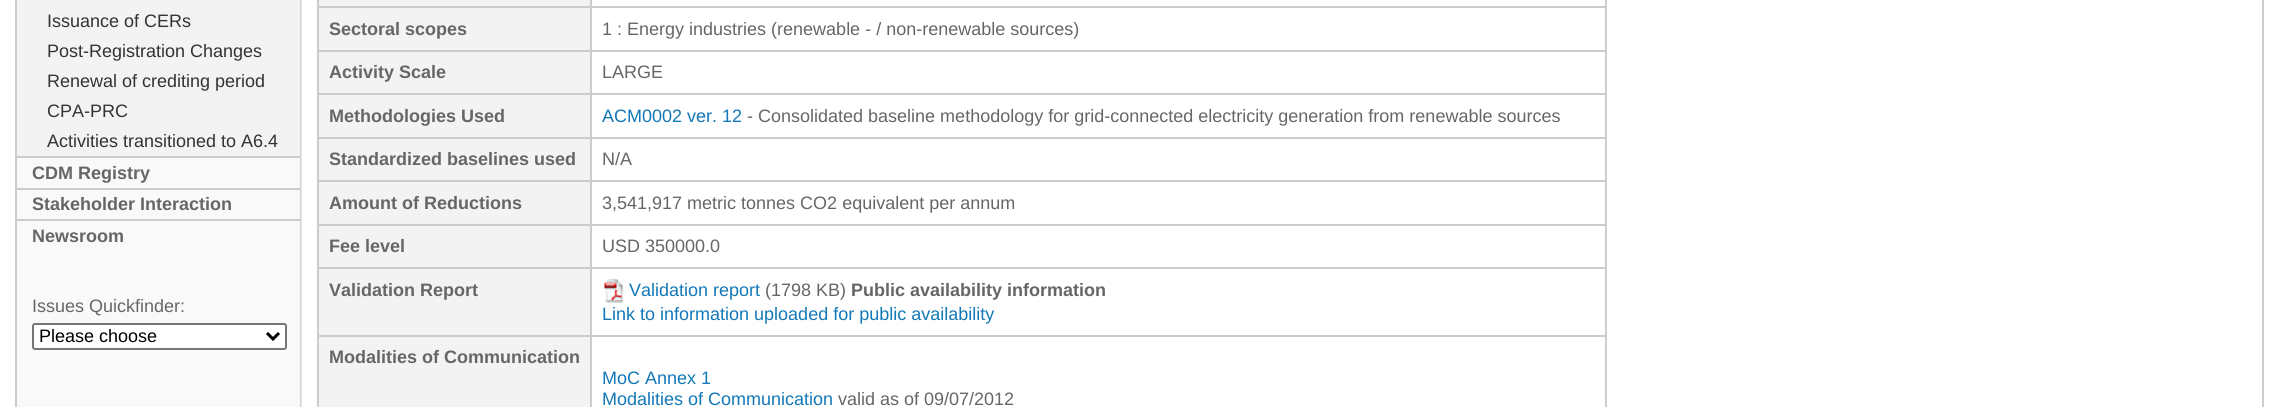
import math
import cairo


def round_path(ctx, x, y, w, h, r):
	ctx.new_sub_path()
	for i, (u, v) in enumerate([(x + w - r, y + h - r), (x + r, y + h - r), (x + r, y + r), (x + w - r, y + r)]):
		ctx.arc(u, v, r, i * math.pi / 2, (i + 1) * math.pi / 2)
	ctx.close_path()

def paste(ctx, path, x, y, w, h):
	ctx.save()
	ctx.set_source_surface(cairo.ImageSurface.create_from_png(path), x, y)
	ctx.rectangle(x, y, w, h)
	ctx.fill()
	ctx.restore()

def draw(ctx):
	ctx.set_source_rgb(1, 1, 1)
	ctx.paint()
	paste(ctx, 'media/1.png', 300, 0, 2, 407)
	ctx.rectangle(16, -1, 2247, 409)
	ctx.set_source_rgb(0.8, 0.8, 0.8)
	ctx.stroke()
	ctx.set_source_rgb(0.976, 0.976, 0.976)
	ctx.rectangle(17, 158, 283, 249)
	ctx.fill()
	ctx.set_source_rgb(0.953, 0.953, 0.953)
	ctx.rectangle(17, 0, 283, 156)
	ctx.fill()
	ctx.select_font_face('Liberation Sans')
	ctx.set_font_size(18)
	ctx.set_source_rgb(0.2, 0.2, 0.2)
	for x, y, s in [
		(47, 27, 'Issuance of CERs'),
		(47, 57, 'Post-Registration Changes'),
		(47, 87, 'Renewal of crediting period'),
		(47, 117, 'CPA-PRC'),
		(47, 147, 'Activities transitioned to A6.4'),
	]:
		ctx.move_to(x, y)
		ctx.show_text(s)
	ctx.set_source_rgb(0.8, 0.8, 0.8)
	ctx.rectangle(17, 156, 283, 2)
	ctx.fill()
	ctx.select_font_face('Liberation Sans', cairo.FONT_SLANT_NORMAL, cairo.FONT_WEIGHT_BOLD)
	ctx.set_source_rgb(0.4, 0.4, 0.4)
	ctx.move_to(32, 179)
	ctx.show_text('CDM Registry')
	ctx.set_source_rgb(0.8, 0.8, 0.8)
	ctx.rectangle(17, 188, 283, 2)
	ctx.fill()
	ctx.set_source_rgb(0.4, 0.4, 0.4)
	ctx.move_to(32, 210)
	ctx.show_text('Stakeholder Interaction')
	ctx.set_source_rgb(0.8, 0.8, 0.8)
	ctx.rectangle(17, 219, 283, 2)
	ctx.fill()
	ctx.set_source_rgb(0.4, 0.4, 0.4)
	ctx.move_to(32, 242)
	ctx.show_text('Newsroom')
	ctx.select_font_face('Liberation Sans')
	ctx.move_to(32, 312)
	ctx.show_text('Issues Quickfinder:')
	ctx.set_source_rgb(1, 1, 1)
	round_path(ctx, 33, 324, 253, 25, 2)
	ctx.fill_preserve()
	ctx.set_source_rgb(0.463, 0.463, 0.463)
	ctx.stroke()
	ctx.new_path()
	ctx.move_to(267, 333)
	ctx.line_to(273, 339)
	ctx.line_to(279, 333)
	ctx.set_source_rgb(0, 0, 0)
	ctx.set_line_width(3)
	ctx.stroke()
	ctx.move_to(39, 342)
	ctx.show_text('Please choose')
	ctx.set_source_rgb(0.8, 0.8, 0.8)
	ctx.rectangle(1605, 0, 2, 407)
	ctx.fill()
	ctx.set_source_rgb(0.953, 0.953, 0.953)
	ctx.rectangle(318, 0, 273, 6)
	ctx.fill()
	ctx.set_source_rgb(0.8, 0.8, 0.8)
	ctx.rectangle(590, 6, 1017, 2)
	ctx.rectangle(590, 50, 1017, 2)
	ctx.rectangle(590, 93, 1017, 2)
	ctx.rectangle(590, 137, 1017, 2)
	ctx.rectangle(590, 180, 1017, 2)
	ctx.rectangle(590, 224, 1017, 2)
	ctx.rectangle(590, 267, 1017, 2)
	ctx.rectangle(590, 335, 1017, 2)
	ctx.rectangle(590, 335, 2, 72)
	ctx.rectangle(317, 335, 274, 2)
	ctx.rectangle(590, 267, 2, 69)
	ctx.rectangle(317, 267, 274, 2)
	ctx.rectangle(590, 224, 2, 45)
	ctx.rectangle(317, 224, 274, 2)
	ctx.rectangle(590, 180, 2, 45)
	ctx.rectangle(317, 180, 274, 2)
	ctx.rectangle(590, 137, 2, 45)
	ctx.rectangle(317, 137, 274, 2)
	ctx.rectangle(590, 93, 2, 45)
	ctx.rectangle(317, 93, 274, 2)
	ctx.rectangle(590, 50, 2, 45)
	ctx.rectangle(317, 50, 274, 2)
	ctx.rectangle(590, 6, 2, 45)
	ctx.rectangle(317, 6, 274, 2)
	ctx.rectangle(590, 0, 2, 8)
	ctx.fill()
	ctx.set_source_rgb(0.953, 0.953, 0.953)
	ctx.rectangle(319, 8, 271, 42)
	ctx.fill()
	ctx.set_source_rgb(0.8, 0.8, 0.8)
	ctx.rectangle(317, 335, 2, 72)
	ctx.rectangle(317, 267, 2, 69)
	ctx.rectangle(317, 224, 2, 45)
	ctx.rectangle(317, 180, 2, 45)
	ctx.rectangle(317, 137, 2, 45)
	ctx.rectangle(317, 93, 2, 45)
	ctx.rectangle(317, 50, 2, 45)
	ctx.rectangle(317, 0, 2, 51)
	ctx.fill()
	ctx.select_font_face('Liberation Sans', cairo.FONT_SLANT_NORMAL, cairo.FONT_WEIGHT_BOLD)
	ctx.set_source_rgb(0.4, 0.4, 0.4)
	ctx.move_to(329, 35)
	ctx.show_text('Sectoral scopes')
	ctx.select_font_face('Liberation Sans')
	ctx.move_to(602, 35)
	ctx.show_text('1 : Energy industries (renewable - / non-renewable sources)')
	ctx.set_source_rgb(0.953, 0.953, 0.953)
	ctx.rectangle(319, 52, 271, 41)
	ctx.fill()
	ctx.select_font_face('Liberation Sans', cairo.FONT_SLANT_NORMAL, cairo.FONT_WEIGHT_BOLD)
	ctx.set_source_rgb(0.4, 0.4, 0.4)
	ctx.move_to(329, 78)
	ctx.show_text('Activity Scale')
	ctx.select_font_face('Liberation Sans')
	ctx.move_to(602, 78)
	ctx.show_text('LARGE')
	ctx.set_source_rgb(0.953, 0.953, 0.953)
	ctx.rectangle(319, 95, 271, 42)
	ctx.fill()
	ctx.select_font_face('Liberation Sans', cairo.FONT_SLANT_NORMAL, cairo.FONT_WEIGHT_BOLD)
	ctx.set_source_rgb(0.4, 0.4, 0.4)
	ctx.move_to(329, 122)
	ctx.show_text('Methodologies Used')
	ctx.select_font_face('Liberation Sans')
	ctx.set_source_rgb(0.078, 0.471, 0.718)
	ctx.move_to(602, 122)
	ctx.show_text('ACM0002 ver. 12')
	ctx.set_source_rgb(0.4, 0.4, 0.4)
	ctx.move_to(747, 122)
	ctx.show_text('- Consolidated baseline methodology for grid-connected electricity generation from renewable sources')
	ctx.set_source_rgb(0.953, 0.953, 0.953)
	ctx.rectangle(319, 139, 271, 41)
	ctx.fill()
	ctx.select_font_face('Liberation Sans', cairo.FONT_SLANT_NORMAL, cairo.FONT_WEIGHT_BOLD)
	ctx.set_source_rgb(0.4, 0.4, 0.4)
	ctx.move_to(329, 165)
	ctx.show_text('Standardized baselines used')
	ctx.select_font_face('Liberation Sans')
	ctx.move_to(602, 165)
	ctx.show_text('N/A')
	ctx.set_source_rgb(0.953, 0.953, 0.953)
	ctx.rectangle(319, 182, 271, 42)
	ctx.fill()
	ctx.select_font_face('Liberation Sans', cairo.FONT_SLANT_NORMAL, cairo.FONT_WEIGHT_BOLD)
	ctx.set_source_rgb(0.4, 0.4, 0.4)
	ctx.move_to(329, 209)
	ctx.show_text('Amount of Reductions')
	ctx.select_font_face('Liberation Sans')
	ctx.move_to(602, 209)
	ctx.show_text('3,541,917 metric tonnes CO2 equivalent per annum')
	ctx.set_source_rgb(0.953, 0.953, 0.953)
	ctx.rectangle(319, 226, 271, 41)
	ctx.fill()
	ctx.select_font_face('Liberation Sans', cairo.FONT_SLANT_NORMAL, cairo.FONT_WEIGHT_BOLD)
	ctx.set_source_rgb(0.4, 0.4, 0.4)
	ctx.move_to(329, 252)
	ctx.show_text('Fee level')
	ctx.select_font_face('Liberation Sans')
	ctx.move_to(602, 252)
	ctx.show_text('USD 350000.0')
	ctx.set_source_rgb(0.953, 0.953, 0.953)
	ctx.rectangle(319, 269, 271, 66)
	ctx.fill()
	ctx.select_font_face('Liberation Sans', cairo.FONT_SLANT_NORMAL, cairo.FONT_WEIGHT_BOLD)
	ctx.set_source_rgb(0.4, 0.4, 0.4)
	ctx.move_to(329, 296)
	ctx.show_text('Validation Report')
	paste(ctx, 'media/2.png', 603, 279, 21, 24)
	ctx.select_font_face('Liberation Sans')
	ctx.set_source_rgb(0.078, 0.471, 0.718)
	ctx.move_to(629, 296)
	ctx.show_text('Validation report')
	ctx.set_source_rgb(0.4, 0.4, 0.4)
	ctx.move_to(765, 296)
	ctx.show_text('(1798 KB)')
	ctx.select_font_face('Liberation Sans', cairo.FONT_SLANT_NORMAL, cairo.FONT_WEIGHT_BOLD)
	ctx.move_to(851, 296)
	ctx.show_text('Public availability information')
	ctx.select_font_face('Liberation Sans')
	ctx.set_source_rgb(0.078, 0.471, 0.718)
	ctx.move_to(602, 320)
	ctx.show_text('Link to information uploaded for public availability')
	ctx.set_source_rgb(0.953, 0.953, 0.953)
	ctx.rectangle(319, 337, 271, 70)
	ctx.fill()
	ctx.select_font_face('Liberation Sans', cairo.FONT_SLANT_NORMAL, cairo.FONT_WEIGHT_BOLD)
	ctx.set_source_rgb(0.4, 0.4, 0.4)
	ctx.move_to(329, 363)
	ctx.show_text('Modalities of Communication')
	ctx.select_font_face('Liberation Sans')
	ctx.set_source_rgb(0.078, 0.471, 0.718)
	ctx.move_to(602, 384)
	ctx.show_text('MoC Annex 1')
	ctx.move_to(602, 405)
	ctx.show_text('Modalities of Communication')
	ctx.set_source_rgb(0.4, 0.4, 0.4)
	ctx.move_to(838, 405)
	ctx.show_text('valid as of 09/07/2012')


surface = cairo.ImageSurface(cairo.FORMAT_RGB24, 2278, 407)
ctx = cairo.Context(surface)
options = cairo.FontOptions()
options.set_hint_metrics(cairo.HINT_METRICS_OFF)
options.set_hint_style(cairo.HINT_STYLE_NONE)
ctx.set_font_options(options)
ctx.set_miter_limit(4)
draw(ctx)
surface.write_to_png('image.png')
